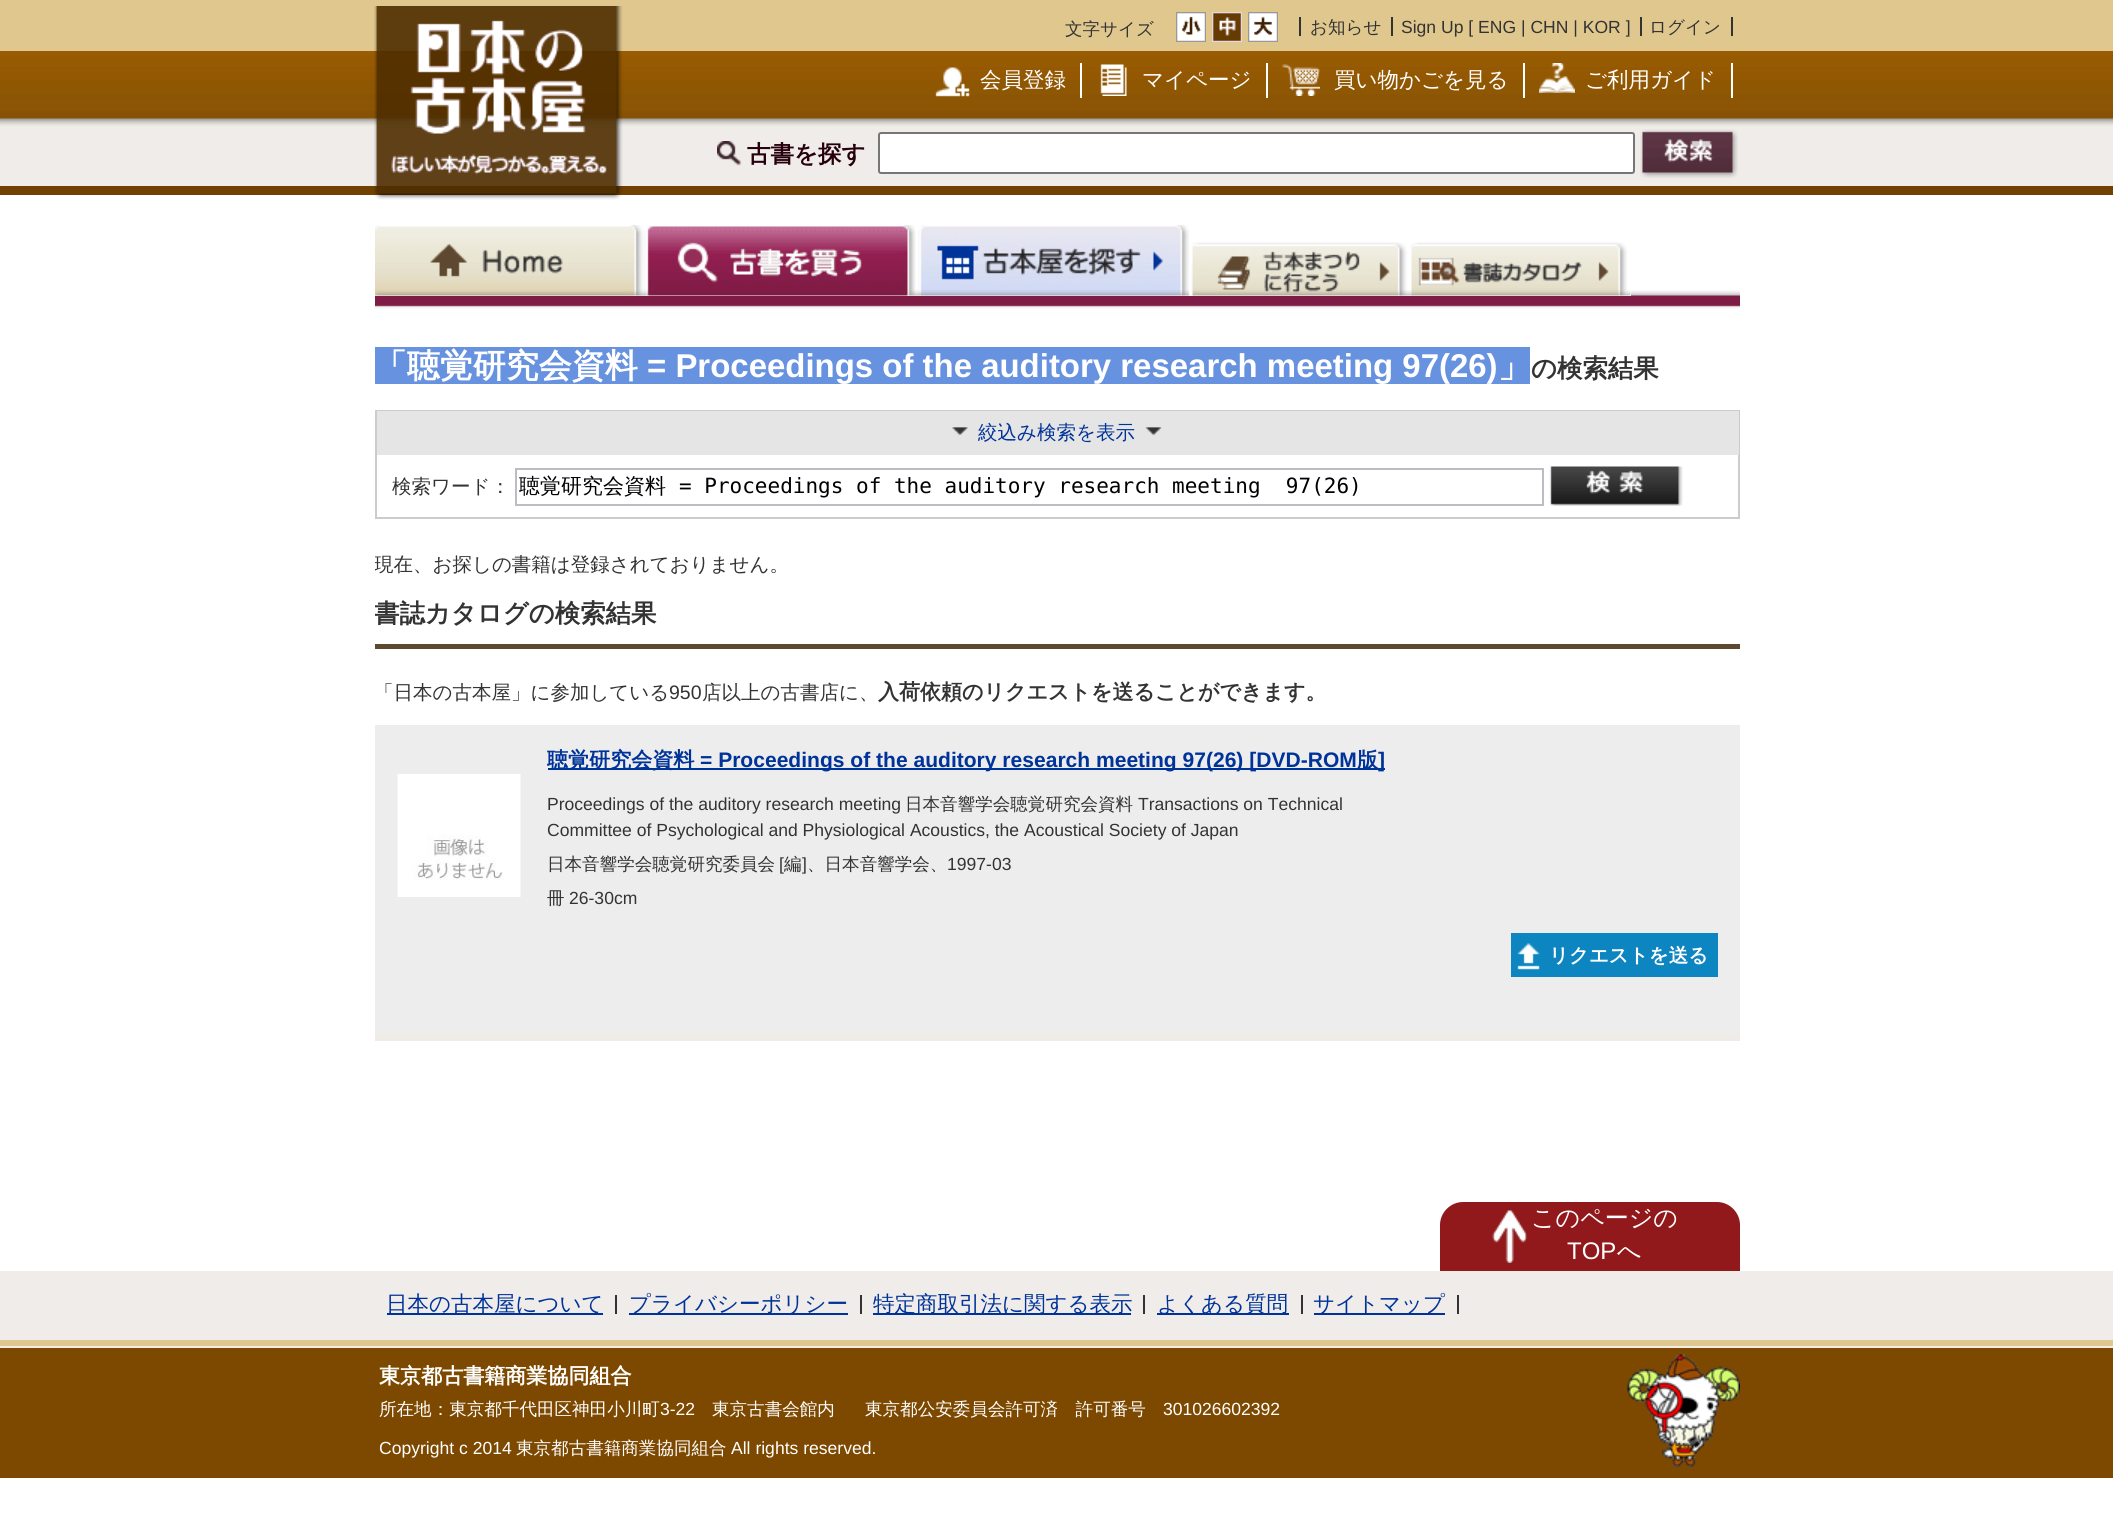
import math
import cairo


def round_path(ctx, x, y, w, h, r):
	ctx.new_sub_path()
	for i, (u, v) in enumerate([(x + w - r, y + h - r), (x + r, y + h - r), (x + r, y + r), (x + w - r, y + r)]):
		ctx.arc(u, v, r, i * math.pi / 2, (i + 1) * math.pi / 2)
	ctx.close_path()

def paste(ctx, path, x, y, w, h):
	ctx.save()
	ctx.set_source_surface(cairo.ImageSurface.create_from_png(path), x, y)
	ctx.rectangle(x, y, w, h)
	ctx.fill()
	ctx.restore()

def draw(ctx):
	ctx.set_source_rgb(1, 1, 1)
	ctx.paint()
	ctx.set_source_rgb(0.878, 0.78, 0.557)
	ctx.rectangle(0, 0, 2113, 51)
	ctx.fill()
	paste(ctx, 'media/5.png', 0, 51, 2113, 78)
	ctx.set_source_rgb(0.941, 0.925, 0.914)
	ctx.rectangle(0, 129, 2113, 57)
	ctx.fill()
	ctx.set_source_rgb(0.443, 0.255, 0.004)
	ctx.rectangle(0, 186, 2113, 9)
	ctx.fill()
	paste(ctx, 'media/1.png', 374, 6, 249, 194)
	ctx.select_font_face('WenQuanYi Zen Hei Medium')
	ctx.set_font_size(17.55)
	ctx.set_source_rgb(0.2, 0.2, 0.2)
	ctx.move_to(1065, 35)
	ctx.show_text('文字サイズ')
	paste(ctx, 'media/2.png', 1176, 12, 30, 30)
	paste(ctx, 'media/3.png', 1212, 12, 30, 30)
	paste(ctx, 'media/4.png', 1248, 12, 30, 30)
	ctx.rectangle(1299, 17, 2, 19)
	ctx.fill()
	ctx.move_to(1310, 33)
	ctx.show_text('お知らせ')
	ctx.rectangle(1391, 17, 2, 19)
	ctx.fill()
	ctx.select_font_face('Liberation Sans')
	ctx.move_to(1401, 33)
	ctx.show_text('Sign Up [ ENG | CHN | KOR ]')
	ctx.rectangle(1731, 17, 2, 19)
	ctx.fill()
	ctx.rectangle(1640, 17, 2, 19)
	ctx.fill()
	ctx.select_font_face('WenQuanYi Zen Hei Medium')
	ctx.move_to(1649, 33)
	ctx.show_text('ログイン')
	paste(ctx, 'media/6.png', 935, 67, 35, 30)
	ctx.set_source_rgb(1, 1, 1)
	ctx.rectangle(1080, 63, 2, 35)
	ctx.fill()
	ctx.set_font_size(21.5)
	ctx.move_to(980, 87)
	ctx.show_text('会員登録')
	paste(ctx, 'media/7.png', 1100, 64, 27, 32)
	ctx.rectangle(1266, 63, 2, 35)
	ctx.fill()
	ctx.move_to(1142, 87)
	ctx.show_text('マイページ')
	paste(ctx, 'media/8.png', 1282, 64, 38, 32)
	ctx.rectangle(1523, 63, 2, 35)
	ctx.fill()
	ctx.move_to(1334, 87)
	ctx.show_text('買い物かごを見る')
	paste(ctx, 'media/9.png', 1539, 63, 36, 30)
	ctx.rectangle(1731, 63, 2, 35)
	ctx.fill()
	ctx.move_to(1585, 87)
	ctx.show_text('ご利用ガイド')
	paste(ctx, 'media/10.png', 717, 141, 24, 25)
	ctx.select_font_face('WenQuanYi Zen Hei', cairo.FONT_SLANT_NORMAL, cairo.FONT_WEIGHT_BOLD)
	ctx.set_font_size(23.5)
	ctx.set_source_rgb(0.149, 0, 0.047)
	ctx.move_to(747, 162)
	ctx.show_text('古書を探す')
	ctx.set_source_rgb(1, 1, 1)
	round_path(ctx, 879, 133, 755, 40, 2)
	ctx.fill_preserve()
	ctx.set_source_rgb(0.463, 0.463, 0.463)
	ctx.stroke()
	paste(ctx, 'media/11.png', 1640, 129, 98, 49)
	paste(ctx, 'media/12.png', 375, 290, 1365, 19)
	ctx.set_source_rgb(1, 1, 1)
	ctx.rectangle(375, 290, 272, 6)
	ctx.fill()
	paste(ctx, 'media/13.png', 375, 225, 272, 71)
	ctx.rectangle(647, 295, 271, 1)
	ctx.fill()
	paste(ctx, 'media/14.png', 646, 225, 272, 71)
	ctx.rectangle(918, 290, 272, 6)
	ctx.fill()
	paste(ctx, 'media/15.png', 918, 225, 272, 71)
	ctx.rectangle(1190, 295, 220, 1)
	ctx.fill()
	paste(ctx, 'media/16.png', 1189, 242, 221, 54)
	ctx.rectangle(1410, 290, 221, 6)
	ctx.fill()
	paste(ctx, 'media/17.png', 1410, 242, 221, 54)
	ctx.set_source_rgb(0.404, 0.573, 0.878)
	ctx.rectangle(375, 347, 1155, 37)
	ctx.fill()
	ctx.set_font_size(32.95)
	ctx.set_source_rgb(1, 1, 1)
	ctx.move_to(374, 377)
	ctx.show_text('「聴覚研究会資料')
	ctx.select_font_face('Liberation Sans', cairo.FONT_SLANT_NORMAL, cairo.FONT_WEIGHT_BOLD)
	ctx.move_to(647, 377)
	ctx.show_text('= Proceedings of the auditory research meeting 97(26)')
	ctx.select_font_face('WenQuanYi Zen Hei', cairo.FONT_SLANT_NORMAL, cairo.FONT_WEIGHT_BOLD)
	ctx.move_to(1498, 377)
	ctx.show_text('」')
	ctx.set_font_size(25.4)
	ctx.set_source_rgb(0.2, 0.2, 0.2)
	ctx.move_to(1531, 377)
	ctx.show_text('の検索結果')
	ctx.rectangle(376, 411, 1363, 107)
	ctx.set_source_rgb(0.8, 0.8, 0.8)
	ctx.stroke()
	ctx.set_source_rgb(0.898, 0.898, 0.898)
	ctx.rectangle(377, 411, 1362, 44)
	ctx.fill()
	paste(ctx, 'media/18.png', 952, 427, 16, 8)
	paste(ctx, 'media/19.png', 1145, 427, 17, 8)
	ctx.select_font_face('WenQuanYi Zen Hei Medium')
	ctx.set_font_size(19.5)
	ctx.set_source_rgb(0, 0.2, 0.6)
	ctx.move_to(978, 439)
	ctx.show_text('絞込み検索を表示')
	ctx.set_source_rgb(0.2, 0.2, 0.2)
	ctx.move_to(392, 493)
	ctx.show_text('検索ワード：')
	ctx.rectangle(516, 469, 1027, 36)
	ctx.set_source_rgb(0.733, 0.741, 0.761)
	ctx.stroke()
	ctx.set_font_size(21)
	ctx.set_source_rgb(0, 0, 0)
	ctx.move_to(519, 493)
	ctx.show_text('聴覚研究会資料')
	ctx.select_font_face('DejaVu Sans Mono')
	ctx.move_to(679, 493)
	ctx.show_text('= Proceedings of the auditory research meeting  97(26)')
	paste(ctx, 'media/20.png', 1549, 466, 134, 40)
	ctx.save()
	ctx.rectangle(375, 296, 1365, 876)
	ctx.clip()
	ctx.select_font_face('WenQuanYi Zen Hei Medium')
	ctx.set_font_size(19.5)
	ctx.set_source_rgb(0.2, 0.2, 0.2)
	ctx.move_to(374, 571)
	ctx.show_text('現在、お探しの書籍は登録されておりません。')
	ctx.restore()
	ctx.set_source_rgb(0.369, 0.282, 0.188)
	ctx.rectangle(375, 644, 1365, 5)
	ctx.fill()
	ctx.save()
	ctx.rectangle(375, 296, 1365, 876)
	ctx.clip()
	ctx.select_font_face('WenQuanYi Zen Hei', cairo.FONT_SLANT_NORMAL, cairo.FONT_WEIGHT_BOLD)
	ctx.set_font_size(25.4)
	ctx.set_source_rgb(0.2, 0.2, 0.2)
	ctx.move_to(374, 622)
	ctx.show_text('書誌カタログの検索結果')
	ctx.restore()
	ctx.select_font_face('WenQuanYi Zen Hei Medium')
	ctx.set_font_size(19.5)
	ctx.set_source_rgb(0.2, 0.2, 0.2)
	ctx.move_to(374, 699)
	ctx.show_text('「日本の古本屋」に参加している')
	ctx.select_font_face('Liberation Sans')
	ctx.move_to(669, 699)
	ctx.show_text('950')
	ctx.select_font_face('WenQuanYi Zen Hei Medium')
	ctx.move_to(702, 699)
	ctx.show_text('店以上の古書店に、')
	ctx.select_font_face('WenQuanYi Zen Hei', cairo.FONT_SLANT_NORMAL, cairo.FONT_WEIGHT_BOLD)
	ctx.set_font_size(21)
	ctx.move_to(878, 699)
	ctx.show_text('入荷依頼のリクエストを送ることができます。')
	ctx.set_source_rgb(0.929, 0.929, 0.929)
	ctx.rectangle(375, 725, 1365, 309)
	ctx.fill()
	ctx.set_source_rgb(0.937, 0.925, 0.91)
	ctx.rectangle(375, 1034, 1365, 7)
	ctx.fill()
	paste(ctx, 'media/21.png', 397, 774, 124, 123)
	ctx.set_source_rgb(0, 0.2, 0.6)
	ctx.rectangle(548, 768, 837, 2)
	ctx.fill()
	ctx.set_font_size(21.05)
	ctx.move_to(547, 767)
	ctx.show_text('聴覚研究会資料')
	ctx.select_font_face('Liberation Sans', cairo.FONT_SLANT_NORMAL, cairo.FONT_WEIGHT_BOLD)
	ctx.move_to(700, 767)
	ctx.show_text('= Proceedings of the auditory research meeting 97(26) [DVD-ROM')
	ctx.select_font_face('WenQuanYi Zen Hei', cairo.FONT_SLANT_NORMAL, cairo.FONT_WEIGHT_BOLD)
	ctx.move_to(1357, 767)
	ctx.show_text('版')
	ctx.select_font_face('Liberation Sans', cairo.FONT_SLANT_NORMAL, cairo.FONT_WEIGHT_BOLD)
	ctx.move_to(1378, 767)
	ctx.show_text(']')
	ctx.select_font_face('Liberation Sans')
	ctx.set_font_size(17.55)
	ctx.set_source_rgb(0.2, 0.2, 0.2)
	ctx.move_to(547, 810)
	ctx.show_text('Proceedings of the auditory research meeting')
	ctx.select_font_face('WenQuanYi Zen Hei Medium')
	ctx.move_to(905, 810)
	ctx.show_text('日本音響学会聴覚研究会資料')
	ctx.select_font_face('Liberation Sans')
	ctx.move_to(1138, 810)
	ctx.show_text('Transactions on Technical')
	ctx.move_to(547, 836)
	ctx.show_text('Committee of Psychological and Physiological Acoustics, the Acoustical Society of Japan')
	ctx.select_font_face('WenQuanYi Zen Hei Medium')
	ctx.move_to(547, 870)
	ctx.show_text('日本音響学会聴覚研究委員会')
	ctx.select_font_face('Liberation Sans')
	ctx.move_to(779, 870)
	ctx.show_text('[')
	ctx.select_font_face('WenQuanYi Zen Hei Medium')
	ctx.move_to(784, 870)
	ctx.show_text('編')
	ctx.select_font_face('Liberation Sans')
	ctx.move_to(802, 870)
	ctx.show_text(']')
	ctx.select_font_face('WenQuanYi Zen Hei Medium')
	ctx.move_to(807, 870)
	ctx.show_text('、日本音響学会、')
	ctx.select_font_face('Liberation Sans')
	ctx.move_to(947, 870)
	ctx.show_text('1997-03')
	ctx.select_font_face('WenQuanYi Zen Hei Medium')
	ctx.move_to(547, 904)
	ctx.show_text('冊')
	ctx.select_font_face('Liberation Sans')
	ctx.move_to(569, 904)
	ctx.show_text('26-30cm')
	ctx.set_source_rgb(0.051, 0.522, 0.757)
	ctx.rectangle(1511, 933, 207, 44)
	ctx.fill()
	paste(ctx, 'media/22.png', 1517, 943, 23, 27)
	ctx.select_font_face('WenQuanYi Zen Hei', cairo.FONT_SLANT_NORMAL, cairo.FONT_WEIGHT_BOLD)
	ctx.set_font_size(19.5)
	ctx.set_source_rgb(1, 1, 1)
	ctx.move_to(1549, 962)
	ctx.show_text('リクエストを送る')
	ctx.set_source_rgb(0.569, 0.098, 0.106)
	ctx.new_path()
	ctx.move_to(1463, 1202)
	ctx.line_to(1717, 1202)
	ctx.curve_to(1729.5, 1202, 1740, 1212.5, 1740, 1225)
	ctx.line_to(1740, 1271)
	ctx.line_to(1440, 1271)
	ctx.line_to(1440, 1225)
	ctx.curve_to(1440, 1212.5, 1450.5, 1202, 1463, 1202)
	ctx.close_path()
	ctx.fill()
	paste(ctx, 'media/23.png', 1492, 1210, 35, 53)
	ctx.select_font_face('WenQuanYi Zen Hei Medium')
	ctx.set_font_size(24)
	ctx.set_source_rgb(1, 1, 1)
	ctx.move_to(1531, 1226)
	ctx.show_text('このページの')
	ctx.select_font_face('Liberation Sans')
	ctx.move_to(1567, 1259)
	ctx.show_text('TOP')
	ctx.select_font_face('WenQuanYi Zen Hei Medium')
	ctx.move_to(1617, 1259)
	ctx.show_text('へ')
	ctx.set_source_rgb(0.941, 0.925, 0.914)
	ctx.rectangle(0, 1271, 2113, 69)
	ctx.fill()
	ctx.set_source_rgb(0.878, 0.78, 0.557)
	ctx.rectangle(0, 1340, 2113, 6)
	ctx.fill()
	ctx.set_source_rgb(0.2, 0.2, 0.2)
	ctx.rectangle(615, 1295, 2, 19)
	ctx.fill()
	ctx.set_source_rgb(0, 0.2, 0.6)
	ctx.rectangle(387, 1313, 216, 2)
	ctx.fill()
	ctx.set_font_size(21.5)
	ctx.move_to(386, 1311)
	ctx.show_text('日本の古本屋について')
	ctx.set_source_rgb(0.2, 0.2, 0.2)
	ctx.rectangle(860, 1295, 2, 19)
	ctx.fill()
	ctx.set_source_rgb(0, 0.2, 0.6)
	ctx.rectangle(629, 1313, 219, 2)
	ctx.fill()
	ctx.move_to(629, 1311)
	ctx.show_text('プライバシーポリシー')
	ctx.set_source_rgb(0.2, 0.2, 0.2)
	ctx.rectangle(1143, 1295, 2, 19)
	ctx.fill()
	ctx.set_source_rgb(0, 0.2, 0.6)
	ctx.rectangle(873, 1313, 258, 2)
	ctx.fill()
	ctx.move_to(873, 1311)
	ctx.show_text('特定商取引法に関する表示')
	ctx.set_source_rgb(0.2, 0.2, 0.2)
	ctx.rectangle(1301, 1295, 2, 19)
	ctx.fill()
	ctx.set_source_rgb(0, 0.2, 0.6)
	ctx.rectangle(1157, 1313, 132, 2)
	ctx.fill()
	ctx.move_to(1157, 1311)
	ctx.show_text('よくある質問')
	ctx.set_source_rgb(0.2, 0.2, 0.2)
	ctx.rectangle(1457, 1295, 2, 19)
	ctx.fill()
	ctx.set_source_rgb(0, 0.2, 0.6)
	ctx.rectangle(1314, 1313, 131, 2)
	ctx.fill()
	ctx.move_to(1313, 1311)
	ctx.show_text('サイトマップ')
	ctx.set_source_rgb(0.49, 0.286, 0.004)
	ctx.rectangle(0, 1348, 2113, 130)
	ctx.fill()
	ctx.set_source_rgb(0.941, 0.925, 0.914)
	ctx.rectangle(0, 1346, 2113, 2)
	ctx.fill()
	paste(ctx, 'media/24.png', 1627, 1354, 113, 113)
	ctx.select_font_face('WenQuanYi Zen Hei', cairo.FONT_SLANT_NORMAL, cairo.FONT_WEIGHT_BOLD)
	ctx.set_font_size(21.05)
	ctx.set_source_rgb(1, 1, 1)
	ctx.move_to(379, 1383)
	ctx.show_text('東京都古書籍商業協同組合')
	ctx.select_font_face('WenQuanYi Zen Hei Medium')
	ctx.set_font_size(17.55)
	ctx.move_to(379, 1415)
	ctx.show_text('所在地：東京都千代田区神田小川町')
	ctx.select_font_face('Liberation Sans')
	ctx.move_to(660, 1415)
	ctx.show_text('3-22')
	ctx.select_font_face('WenQuanYi Zen Hei Medium')
	ctx.move_to(712, 1415)
	ctx.show_text('東京古書会館内')
	ctx.move_to(865, 1415)
	ctx.show_text('東京都公安委員会許可済　許可番号')
	ctx.select_font_face('Liberation Sans')
	ctx.move_to(1163, 1415)
	ctx.show_text('301026602392')
	ctx.move_to(379, 1454)
	ctx.show_text('Copyright c 2014')
	ctx.select_font_face('WenQuanYi Zen Hei Medium')
	ctx.move_to(516, 1454)
	ctx.show_text('東京都古書籍商業協同組合')
	ctx.select_font_face('Liberation Sans')
	ctx.move_to(731, 1454)
	ctx.show_text('All rights reserved.')


surface = cairo.ImageSurface(cairo.FORMAT_RGB24, 2113, 1519)
ctx = cairo.Context(surface)
options = cairo.FontOptions()
options.set_hint_metrics(cairo.HINT_METRICS_OFF)
options.set_hint_style(cairo.HINT_STYLE_NONE)
ctx.set_font_options(options)
ctx.set_miter_limit(4)
draw(ctx)
surface.write_to_png('image.png')
